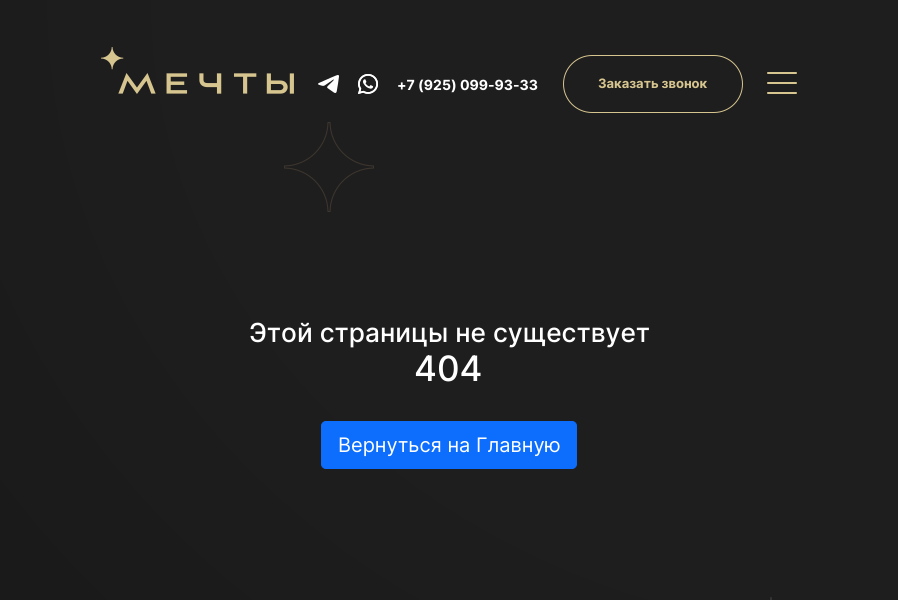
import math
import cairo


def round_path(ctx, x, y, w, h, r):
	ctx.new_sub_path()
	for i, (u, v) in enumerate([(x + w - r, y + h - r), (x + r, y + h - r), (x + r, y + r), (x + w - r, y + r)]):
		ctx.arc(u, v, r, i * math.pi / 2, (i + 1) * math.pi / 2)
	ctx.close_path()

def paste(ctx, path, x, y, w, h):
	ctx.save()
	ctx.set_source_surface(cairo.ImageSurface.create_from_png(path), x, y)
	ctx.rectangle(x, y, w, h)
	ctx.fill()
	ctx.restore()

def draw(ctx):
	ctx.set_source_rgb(1, 1, 1)
	ctx.paint()
	gradient = cairo.RadialGradient(0, 0, 0, 0, 0, 1)
	gradient.set_matrix(cairo.Matrix(1 / 1431, 0, 0, 1 / 1219, -1 * 898 / 1431, -1 * 0 / 1219))
	gradient.add_color_stop_rgba(0.48, 0.118, 0.118, 0.118, 1)
	gradient.add_color_stop_rgba(1, 0.09, 0.09, 0.09, 1)
	ctx.set_source(gradient)
	ctx.rectangle(0, 0, 898, 600)
	ctx.fill()
	paste(ctx, 'media/1.png', 101, 47, 193, 47)
	paste(ctx, 'media/2.png', 318, 75, 21, 18)
	paste(ctx, 'media/3.png', 358, 74, 20, 20)
	ctx.select_font_face('Inter', cairo.FONT_SLANT_NORMAL, cairo.FONT_WEIGHT_BOLD)
	ctx.set_font_size(14)
	ctx.set_source_rgb(1, 1, 1)
	ctx.move_to(397, 90)
	ctx.show_text('+7 (925) 099-93-33')
	round_path(ctx, 563.5, 55.5, 179, 57, 28.5)
	ctx.set_source_rgb(0.839, 0.773, 0.561)
	ctx.set_line_width(1)
	ctx.stroke()
	ctx.set_font_size(13)
	ctx.move_to(598, 88)
	ctx.show_text('Заказать звонок')
	round_path(ctx, 767, 72, 30, 2, 1)
	ctx.fill()
	round_path(ctx, 767, 82, 30, 2, 1)
	ctx.fill()
	round_path(ctx, 767, 92, 30, 2, 1)
	ctx.fill()
	ctx.new_path()
	ctx.move_to(373.5, 166)
	ctx.line_to(373.5, 168)
	ctx.curve_to(349.5, 168.5, 330.5, 187.5, 330, 211.5)
	ctx.line_to(328, 211.5)
	ctx.curve_to(327.5, 187.5, 308.5, 168.5, 284.5, 168)
	ctx.line_to(284.5, 166)
	ctx.curve_to(308.5, 165.5, 327.5, 146.5, 328, 122.5)
	ctx.line_to(330, 122.5)
	ctx.curve_to(330.5, 146.5, 349.5, 165.5, 373.5, 166)
	ctx.close_path()
	ctx.set_source_rgb(0.243, 0.212, 0.18)
	ctx.stroke()
	ctx.select_font_face('Inter Medium')
	ctx.set_font_size(26.25)
	ctx.set_source_rgb(1, 1, 1)
	ctx.move_to(249, 342)
	ctx.show_text('Этой страницы не существует')
	ctx.set_font_size(35)
	ctx.move_to(414, 381)
	ctx.show_text('404')
	ctx.set_source_rgb(0.051, 0.431, 0.992)
	round_path(ctx, 321.5, 421.5, 255, 47, 4.5)
	ctx.fill_preserve()
	ctx.stroke()
	ctx.select_font_face('Inter')
	ctx.set_font_size(20)
	ctx.set_source_rgb(1, 1, 1)
	ctx.move_to(338, 452)
	ctx.show_text('Вернуться на Главную')
	paste(ctx, 'media/4.png', 770, 597, 2, 3)


surface = cairo.ImageSurface(cairo.FORMAT_RGB24, 898, 600)
ctx = cairo.Context(surface)
options = cairo.FontOptions()
options.set_hint_metrics(cairo.HINT_METRICS_OFF)
options.set_hint_style(cairo.HINT_STYLE_NONE)
ctx.set_font_options(options)
ctx.set_miter_limit(4)
draw(ctx)
surface.write_to_png('image.png')
